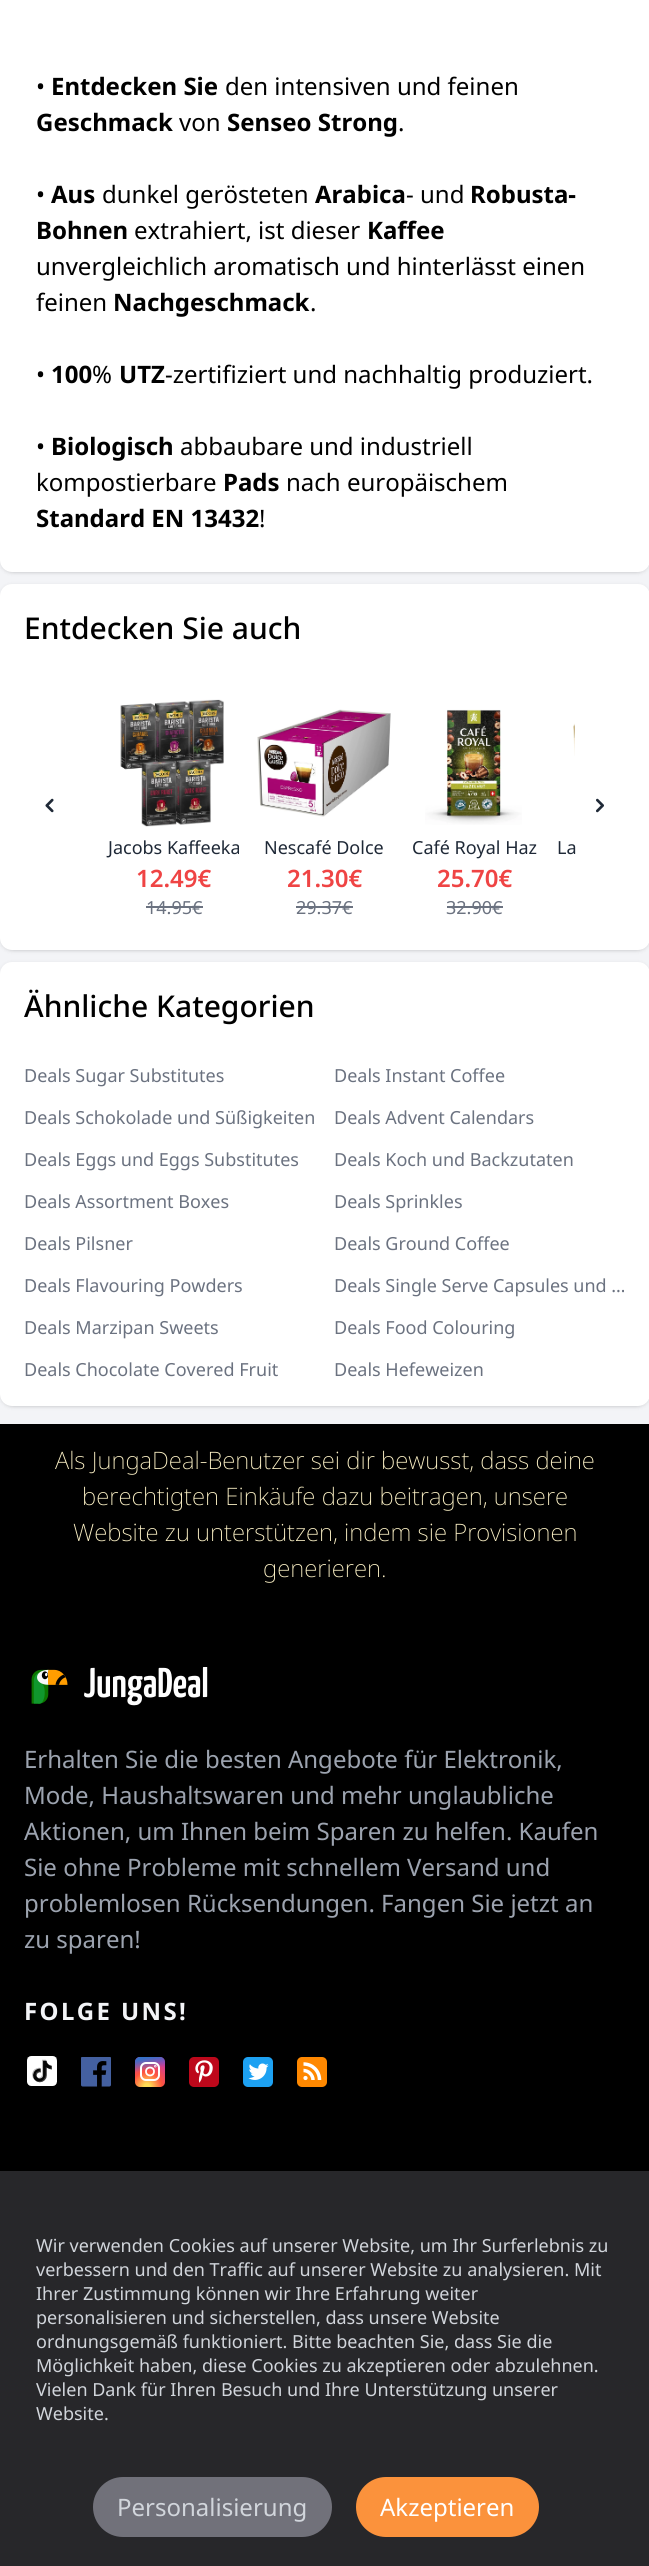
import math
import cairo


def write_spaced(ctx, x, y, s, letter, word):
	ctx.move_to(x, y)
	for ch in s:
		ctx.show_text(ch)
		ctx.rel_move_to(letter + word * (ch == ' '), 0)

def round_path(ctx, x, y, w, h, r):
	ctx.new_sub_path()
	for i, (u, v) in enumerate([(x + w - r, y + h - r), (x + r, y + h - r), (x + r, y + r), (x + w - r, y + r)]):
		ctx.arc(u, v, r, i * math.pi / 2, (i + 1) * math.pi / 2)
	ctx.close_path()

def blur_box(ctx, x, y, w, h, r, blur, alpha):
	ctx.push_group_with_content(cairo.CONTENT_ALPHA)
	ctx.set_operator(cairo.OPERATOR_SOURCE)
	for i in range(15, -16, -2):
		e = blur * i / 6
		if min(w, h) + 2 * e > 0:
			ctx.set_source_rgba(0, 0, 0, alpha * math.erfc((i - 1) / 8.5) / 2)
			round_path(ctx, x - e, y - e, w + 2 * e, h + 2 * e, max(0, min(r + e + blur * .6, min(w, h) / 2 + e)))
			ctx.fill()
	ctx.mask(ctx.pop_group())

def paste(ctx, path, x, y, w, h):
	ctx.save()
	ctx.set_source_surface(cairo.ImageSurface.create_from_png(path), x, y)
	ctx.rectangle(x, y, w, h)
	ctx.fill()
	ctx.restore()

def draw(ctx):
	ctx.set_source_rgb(0.953, 0.957, 0.965)
	ctx.paint()
	ctx.set_source_rgb(0, 0, 0)
	blur_box(ctx, 2, -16, 646, 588, 11, 1.5, 0.1)
	blur_box(ctx, 0, -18, 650, 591, 12, 2, 0.1)
	ctx.set_source_rgb(1, 1, 1)
	round_path(ctx, 0, -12, 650, 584, 12)
	ctx.fill()
	ctx.select_font_face('Noto Sans')
	ctx.set_font_size(24)
	ctx.set_source_rgb(0, 0, 0)
	ctx.move_to(36, 95)
	ctx.show_text('•')
	ctx.select_font_face('Noto Sans', cairo.FONT_SLANT_NORMAL, cairo.FONT_WEIGHT_BOLD)
	ctx.move_to(51, 95)
	ctx.show_text('Entdecken Sie')
	ctx.select_font_face('Noto Sans')
	ctx.move_to(225, 95)
	ctx.show_text('den intensiven und feinen')
	ctx.select_font_face('Noto Sans', cairo.FONT_SLANT_NORMAL, cairo.FONT_WEIGHT_BOLD)
	ctx.move_to(36, 131)
	ctx.show_text('Geschmack')
	ctx.select_font_face('Noto Sans')
	ctx.move_to(179, 131)
	ctx.show_text('von')
	ctx.select_font_face('Noto Sans', cairo.FONT_SLANT_NORMAL, cairo.FONT_WEIGHT_BOLD)
	ctx.move_to(227, 131)
	ctx.show_text('Senseo Strong')
	ctx.select_font_face('Noto Sans')
	ctx.move_to(398, 131)
	ctx.show_text('.')
	ctx.move_to(36, 203)
	ctx.show_text('•')
	ctx.select_font_face('Noto Sans', cairo.FONT_SLANT_NORMAL, cairo.FONT_WEIGHT_BOLD)
	ctx.move_to(51, 203)
	ctx.show_text('Aus')
	ctx.select_font_face('Noto Sans')
	ctx.move_to(102, 203)
	ctx.show_text('dunkel gerösteten')
	ctx.select_font_face('Noto Sans', cairo.FONT_SLANT_NORMAL, cairo.FONT_WEIGHT_BOLD)
	ctx.move_to(315, 203)
	ctx.show_text('Arabica')
	ctx.select_font_face('Noto Sans')
	ctx.move_to(406, 203)
	ctx.show_text('- und')
	ctx.select_font_face('Noto Sans', cairo.FONT_SLANT_NORMAL, cairo.FONT_WEIGHT_BOLD)
	ctx.move_to(470, 203)
	ctx.show_text('Robusta-')
	ctx.move_to(36, 239)
	ctx.show_text('Bohnen')
	ctx.select_font_face('Noto Sans')
	ctx.move_to(134, 239)
	ctx.show_text('extrahiert, ist dieser')
	ctx.select_font_face('Noto Sans', cairo.FONT_SLANT_NORMAL, cairo.FONT_WEIGHT_BOLD)
	ctx.move_to(367, 239)
	ctx.show_text('Kaffee')
	ctx.select_font_face('Noto Sans')
	ctx.move_to(36, 275)
	ctx.show_text('unvergleichlich aromatisch und hinterlässt einen')
	ctx.move_to(36, 311)
	ctx.show_text('feinen')
	ctx.select_font_face('Noto Sans', cairo.FONT_SLANT_NORMAL, cairo.FONT_WEIGHT_BOLD)
	ctx.move_to(113, 311)
	ctx.show_text('Nachgeschmack')
	ctx.select_font_face('Noto Sans')
	ctx.move_to(310, 311)
	ctx.show_text('.')
	ctx.move_to(36, 383)
	ctx.show_text('•')
	ctx.select_font_face('Noto Sans', cairo.FONT_SLANT_NORMAL, cairo.FONT_WEIGHT_BOLD)
	ctx.move_to(51, 383)
	ctx.show_text('100')
	ctx.select_font_face('Noto Sans')
	ctx.move_to(92, 383)
	ctx.show_text('%')
	ctx.select_font_face('Noto Sans', cairo.FONT_SLANT_NORMAL, cairo.FONT_WEIGHT_BOLD)
	ctx.move_to(119, 383)
	ctx.show_text('UTZ')
	ctx.select_font_face('Noto Sans')
	ctx.move_to(165, 383)
	ctx.show_text('-zertifiziert und nachhaltig produziert.')
	ctx.move_to(36, 455)
	ctx.show_text('•')
	ctx.select_font_face('Noto Sans', cairo.FONT_SLANT_NORMAL, cairo.FONT_WEIGHT_BOLD)
	ctx.move_to(51, 455)
	ctx.show_text('Biologisch')
	ctx.select_font_face('Noto Sans')
	ctx.move_to(180, 455)
	ctx.show_text('abbaubare und industriell')
	ctx.move_to(36, 491)
	ctx.show_text('kompostierbare')
	ctx.select_font_face('Noto Sans', cairo.FONT_SLANT_NORMAL, cairo.FONT_WEIGHT_BOLD)
	ctx.move_to(223, 491)
	ctx.show_text('Pads')
	ctx.select_font_face('Noto Sans')
	ctx.move_to(286, 491)
	ctx.show_text('nach europäischem')
	ctx.select_font_face('Noto Sans', cairo.FONT_SLANT_NORMAL, cairo.FONT_WEIGHT_BOLD)
	ctx.move_to(36, 527)
	ctx.show_text('Standard EN 13432')
	ctx.select_font_face('Noto Sans')
	ctx.move_to(259, 527)
	ctx.show_text('!')
	ctx.set_source_rgb(0, 0, 0)
	blur_box(ctx, 2, 587, 646, 363, 11, 1.5, 0.1)
	blur_box(ctx, 0, 585, 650, 366, 12, 2, 0.1)
	ctx.set_source_rgb(1, 1, 1)
	round_path(ctx, 0, 584, 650, 366, 12)
	ctx.fill()
	ctx.select_font_face('Noto Sans Medium')
	ctx.set_font_size(30)
	ctx.set_source_rgb(0, 0, 0)
	ctx.move_to(24, 639)
	ctx.show_text('Entdecken Sie auch')
	paste(ctx, 'media/1.png', 45, 798, 9, 15)
	paste(ctx, 'media/2.png', 596, 798, 8, 15)
	paste(ctx, 'media/3.png', 120, 699, 104, 128)
	ctx.select_font_face('Noto Sans')
	ctx.set_font_size(18)
	ctx.set_source_rgb(0.122, 0.161, 0.216)
	ctx.move_to(108, 854)
	ctx.show_text('Jacobs Kaffeeka')
	ctx.select_font_face('Noto Sans SemiBold')
	ctx.set_font_size(24)
	ctx.set_source_rgb(0.937, 0.267, 0.267)
	ctx.move_to(136, 887)
	ctx.show_text('12.49€')
	ctx.select_font_face('Noto Sans')
	ctx.set_font_size(18)
	ctx.set_source_rgb(0.42, 0.447, 0.502)
	ctx.move_to(146, 914)
	ctx.show_text('14.95€')
	ctx.rectangle(146, 906, 57, 2)
	ctx.fill()
	paste(ctx, 'media/4.png', 257, 709, 134, 108)
	ctx.set_source_rgb(0.122, 0.161, 0.216)
	ctx.move_to(264, 854)
	ctx.show_text('Nescafé Dolce')
	ctx.select_font_face('Noto Sans SemiBold')
	ctx.set_font_size(24)
	ctx.set_source_rgb(0.937, 0.267, 0.267)
	ctx.move_to(287, 887)
	ctx.show_text('21.30€')
	ctx.select_font_face('Noto Sans')
	ctx.set_font_size(18)
	ctx.set_source_rgb(0.42, 0.447, 0.502)
	ctx.move_to(296, 914)
	ctx.show_text('29.37€')
	ctx.rectangle(296, 906, 57, 2)
	ctx.fill()
	paste(ctx, 'media/5.png', 425, 709, 97, 116)
	ctx.set_source_rgb(0.122, 0.161, 0.216)
	ctx.move_to(412, 854)
	ctx.show_text('Café Royal Haz')
	ctx.select_font_face('Noto Sans SemiBold')
	ctx.set_font_size(24)
	ctx.set_source_rgb(0.937, 0.267, 0.267)
	ctx.move_to(437, 887)
	ctx.show_text('25.70€')
	ctx.select_font_face('Noto Sans')
	ctx.set_font_size(18)
	ctx.set_source_rgb(0.42, 0.447, 0.502)
	ctx.move_to(446, 914)
	ctx.show_text('32.90€')
	ctx.rectangle(447, 906, 56, 2)
	ctx.fill()
	paste(ctx, 'media/6.png', 573, 723, 2, 33)
	ctx.set_source_rgb(0.122, 0.161, 0.216)
	ctx.move_to(557, 854)
	ctx.show_text('La')
	ctx.set_source_rgb(0, 0, 0)
	blur_box(ctx, 2, 965, 646, 441, 11, 1.5, 0.1)
	blur_box(ctx, 0, 963, 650, 444, 12, 2, 0.1)
	ctx.set_source_rgb(1, 1, 1)
	round_path(ctx, 0, 962, 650, 444, 12)
	ctx.fill()
	ctx.select_font_face('Noto Sans Medium')
	ctx.set_font_size(30)
	ctx.set_source_rgb(0, 0, 0)
	ctx.move_to(24, 1017)
	ctx.show_text('Ähnliche Kategorien')
	ctx.select_font_face('Noto Sans')
	ctx.set_font_size(18)
	ctx.set_source_rgb(0.42, 0.447, 0.502)
	for x, y, s in [
		(24, 1082, 'Deals Sugar Substitutes'),
		(334, 1082, 'Deals Instant Coffee'),
		(24, 1124, 'Deals Schokolade und Süßigkeiten'),
		(334, 1124, 'Deals Advent Calendars'),
		(24, 1166, 'Deals Eggs und Eggs Substitutes'),
		(334, 1166, 'Deals Koch und Backzutaten'),
		(24, 1208, 'Deals Assortment Boxes'),
		(334, 1208, 'Deals Sprinkles'),
		(24, 1250, 'Deals Pilsner'),
		(334, 1250, 'Deals Ground Coffee'),
		(24, 1292, 'Deals Flavouring Powders'),
		(334, 1292, 'Deals Single Serve Capsules und …'),
		(24, 1334, 'Deals Marzipan Sweets'),
		(334, 1334, 'Deals Food Colouring'),
		(24, 1376, 'Deals Chocolate Covered Fruit'),
		(334, 1376, 'Deals Hefeweizen'),
	]:
		ctx.move_to(x, y)
		ctx.show_text(s)
	ctx.set_source_rgb(0, 0, 0)
	ctx.rectangle(0, 1424, 649, 747)
	ctx.fill()
	ctx.select_font_face('Noto Sans ExtraLight')
	ctx.set_font_size(24)
	ctx.set_source_rgb(0.996, 0.953, 0.78)
	for x, y, s in [
		(55, 1469, 'Als JungaDeal-Benutzer sei dir bewusst, dass deine'),
		(82, 1505, 'berechtigten Einkäufe dazu beitragen, unsere'),
		(73, 1541, 'Website zu unterstützen, indem sie Provisionen'),
		(263, 1577, 'generieren.'),
	]:
		ctx.move_to(x, y)
		ctx.show_text(s)
	paste(ctx, 'media/7.png', 31, 1669, 37, 35)
	paste(ctx, 'media/8.png', 84, 1667, 124, 39)
	ctx.select_font_face('Noto Sans')
	ctx.set_source_rgb(0.612, 0.639, 0.686)
	for x, y, s in [
		(24, 1768, 'Erhalten Sie die besten Angebote für Elektronik,'),
		(24, 1804, 'Mode, Haushaltswaren und mehr unglaubliche'),
		(24, 1840, 'Aktionen, um Ihnen beim Sparen zu helfen. Kaufen'),
		(24, 1876, 'Sie ohne Probleme mit schnellem Versand und'),
		(24, 1912, 'problemlosen Rücksendungen. Fangen Sie jetzt an'),
		(24, 1948, 'zu sparen!'),
	]:
		ctx.move_to(x, y)
		ctx.show_text(s)
	ctx.select_font_face('Noto Sans', cairo.FONT_SLANT_NORMAL, cairo.FONT_WEIGHT_BOLD)
	ctx.set_source_rgb(0.953, 0.957, 0.965)
	write_spaced(ctx, 24, 2020, 'FOLGE UNS!', 2.4, 0)
	paste(ctx, 'media/9.png', 27, 2056, 30, 30)
	paste(ctx, 'media/10.png', 81, 2057, 30, 30)
	gradient = cairo.RadialGradient(147, 2087, 0, 147, 2087, 30)
	gradient.add_color_stop_rgba(0.1, 1, 0.867, 0.333, 1)
	gradient.add_color_stop_rgba(0.5, 1, 0.329, 0.243, 1)
	gradient.add_color_stop_rgba(1, 0.784, 0.216, 0.671, 1)
	ctx.set_source(gradient)
	round_path(ctx, 135, 2057, 30, 30, 5)
	ctx.fill()
	gradient = cairo.LinearGradient(135, 2057, 141, 2087)
	gradient.add_color_stop_rgba(0.1, 0.216, 0.443, 0.784, 1)
	gradient.add_color_stop_rgba(0.5, 0.216, 0.443, 0.784, 0)
	ctx.set_source(gradient)
	round_path(ctx, 135, 2057, 30, 30, 5)
	ctx.fill()
	round_path(ctx, 141, 2063, 18, 17, 5)
	ctx.set_source_rgb(1, 1, 1)
	ctx.stroke()
	ctx.arc(150, 2071.5, 4, 0, 2 * math.pi)
	ctx.set_line_width(1.8)
	ctx.stroke()
	ctx.arc(155.3, 2066.2, 0.4, 0, 2 * math.pi)
	ctx.stroke()
	paste(ctx, 'media/11.png', 189, 2057, 30, 30)
	paste(ctx, 'media/12.png', 243, 2057, 30, 30)
	ctx.set_source_rgb(1, 0.533, 0)
	round_path(ctx, 297, 2057, 30, 30, 5)
	ctx.fill()
	ctx.set_source_rgb(1, 1, 1)
	ctx.arc(305.5, 2078, 2.1, 0, 2 * math.pi)
	ctx.fill()
	ctx.new_path()
	ctx.move_to(303.5, 2070.5)
	ctx.curve_to(308.5, 2070.5, 313, 2075, 313, 2080)
	ctx.move_to(319.5, 2080)
	ctx.curve_to(319.5, 2071, 312.5, 2064, 303.5, 2064)
	ctx.set_line_width(3.5)
	ctx.stroke()
	ctx.set_source_rgb(0.153, 0.153, 0.165)
	ctx.rectangle(0, 2171, 649, 395)
	ctx.fill()
	ctx.select_font_face('Noto Sans')
	ctx.set_font_size(18)
	ctx.set_source_rgb(0.82, 0.835, 0.859)
	for x, y, s in [
		(36, 2252, 'Wir verwenden Cookies auf unserer Website, um Ihr Surferlebnis zu'),
		(36, 2276, 'verbessern und den Traffic auf unserer Website zu analysieren. Mit'),
		(36, 2300, 'Ihrer Zustimmung können wir Ihre Erfahrung weiter'),
		(36, 2324, 'personalisieren und sicherstellen, dass unsere Website'),
		(36, 2348, 'ordnungsgemäß funktioniert. Bitte beachten Sie, dass Sie die'),
		(36, 2372, 'Möglichkeit haben, diese Cookies zu akzeptieren oder abzulehnen.'),
		(36, 2396, 'Vielen Dank für Ihren Besuch und Ihre Unterstützung unserer'),
		(36, 2420, 'Website.'),
	]:
		ctx.move_to(x, y)
		ctx.show_text(s)
	ctx.set_source_rgb(0.443, 0.443, 0.478)
	round_path(ctx, 93, 2477, 239, 60, 30)
	ctx.fill()
	ctx.set_font_size(24)
	ctx.set_source_rgb(0.82, 0.835, 0.859)
	ctx.move_to(117, 2516)
	ctx.show_text('Personalisierung')
	ctx.set_source_rgb(0.984, 0.573, 0.235)
	round_path(ctx, 356, 2477, 183, 60, 30)
	ctx.fill()
	ctx.set_source_rgb(1, 1, 1)
	ctx.move_to(380, 2516)
	ctx.show_text('Akzeptieren')


surface = cairo.ImageSurface(cairo.FORMAT_RGB24, 649, 2566)
ctx = cairo.Context(surface)
options = cairo.FontOptions()
options.set_hint_metrics(cairo.HINT_METRICS_OFF)
options.set_hint_style(cairo.HINT_STYLE_NONE)
ctx.set_font_options(options)
ctx.set_miter_limit(4)
draw(ctx)
surface.write_to_png('image.png')
